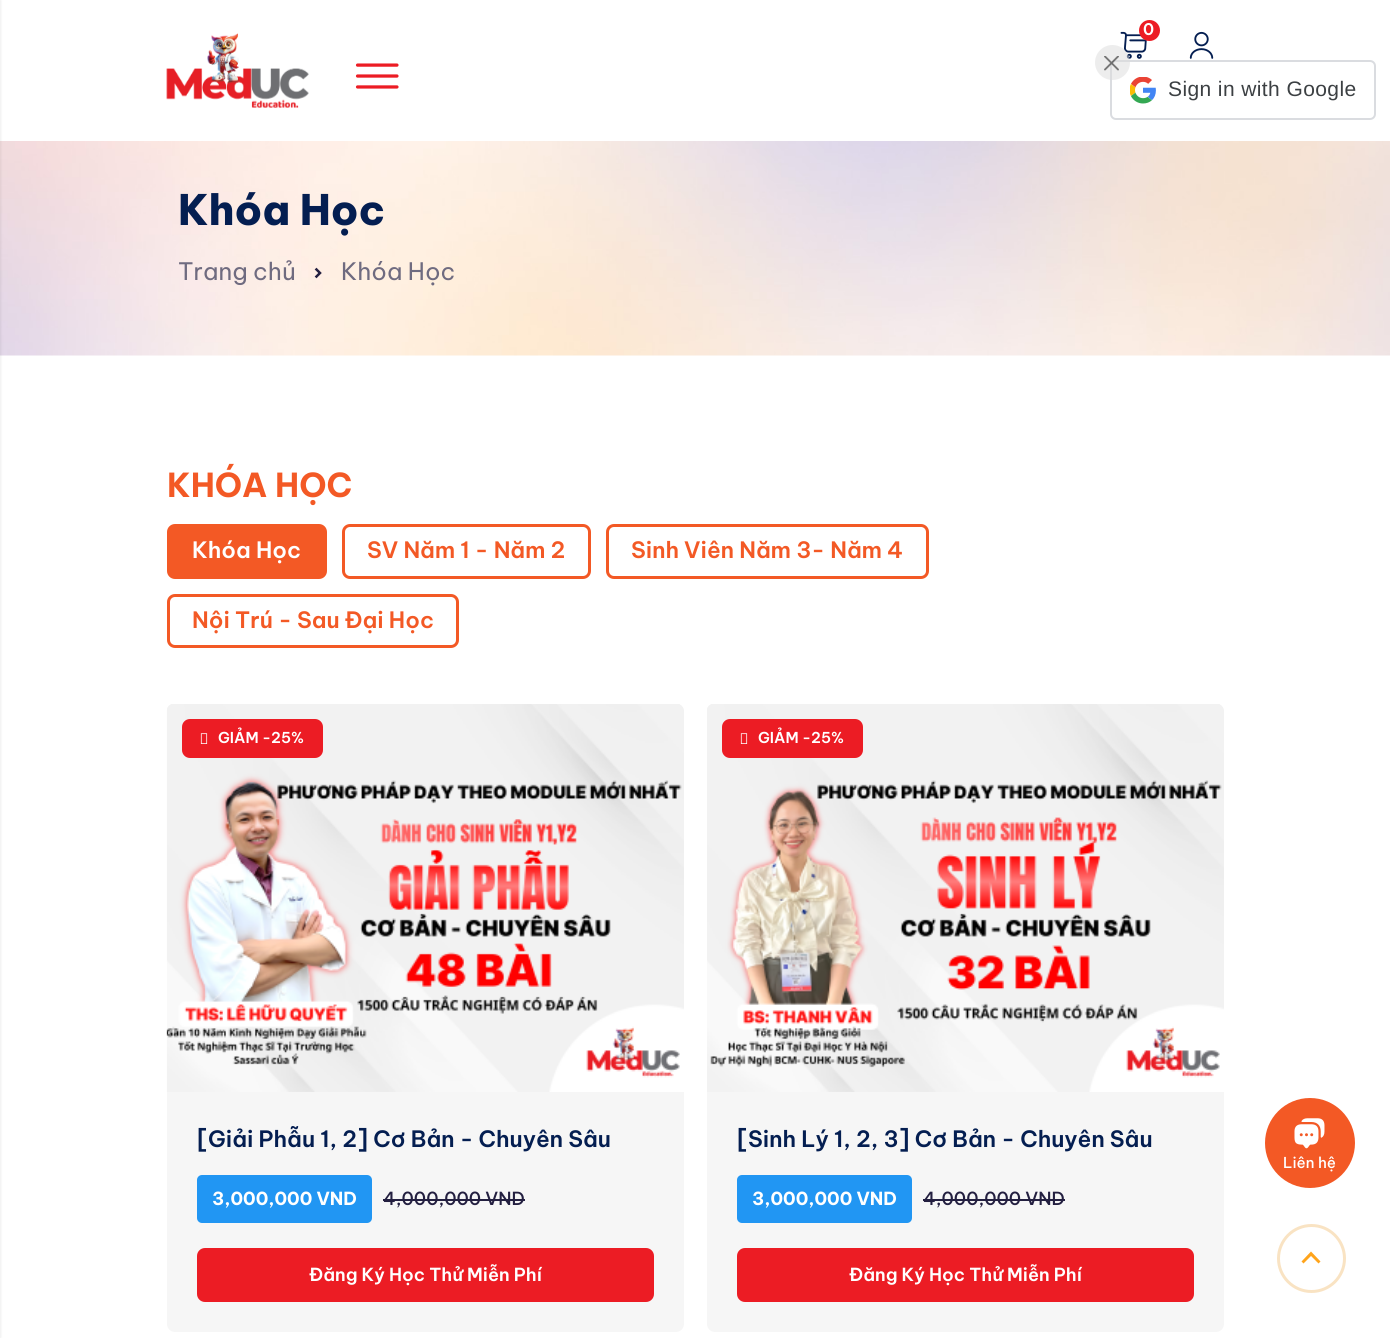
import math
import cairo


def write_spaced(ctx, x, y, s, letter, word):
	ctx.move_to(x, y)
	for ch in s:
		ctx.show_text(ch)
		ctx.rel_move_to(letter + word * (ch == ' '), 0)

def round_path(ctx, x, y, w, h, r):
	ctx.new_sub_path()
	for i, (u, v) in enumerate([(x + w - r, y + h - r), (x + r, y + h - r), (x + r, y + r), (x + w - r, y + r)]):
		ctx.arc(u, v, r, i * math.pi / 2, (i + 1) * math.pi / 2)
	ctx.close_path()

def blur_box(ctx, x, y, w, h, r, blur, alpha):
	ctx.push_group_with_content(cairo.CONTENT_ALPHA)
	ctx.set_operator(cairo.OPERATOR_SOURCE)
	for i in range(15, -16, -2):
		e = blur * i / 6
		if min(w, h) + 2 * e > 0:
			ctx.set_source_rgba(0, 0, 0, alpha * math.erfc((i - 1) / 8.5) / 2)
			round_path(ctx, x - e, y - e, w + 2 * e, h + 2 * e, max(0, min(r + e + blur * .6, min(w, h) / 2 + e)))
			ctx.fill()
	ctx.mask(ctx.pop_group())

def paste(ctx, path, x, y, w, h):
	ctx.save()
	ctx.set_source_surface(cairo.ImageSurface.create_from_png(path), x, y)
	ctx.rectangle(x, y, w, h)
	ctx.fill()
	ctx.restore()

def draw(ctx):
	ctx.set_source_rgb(1, 1, 1)
	ctx.paint()
	paste(ctx, 'media/7.png', 0, 141, 1390, 215)
	ctx.set_source_rgb(0, 0, 0)
	blur_box(ctx, -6, 0, 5, 1338, 0, 2, 0.2)
	paste(ctx, 'media/1.png', 355, 63, 44, 26)
	paste(ctx, 'media/2.png', 1120, 31, 27, 28)
	ctx.set_source_rgb(0.925, 0.11, 0.141)
	ctx.arc(1149.5, 30.5, 10.5, 0, 2 * math.pi)
	ctx.fill()
	ctx.select_font_face('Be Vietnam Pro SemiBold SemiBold')
	ctx.set_font_size(16)
	ctx.set_source_rgb(1, 1, 1)
	ctx.move_to(1143, 35)
	ctx.show_text('0')
	paste(ctx, 'media/3.png', 1189, 31, 25, 28)
	paste(ctx, 'media/4.png', 166, 33, 143, 75)
	round_path(ctx, 1111, 61, 264, 58, 5)
	ctx.set_source_rgb(0.855, 0.863, 0.878)
	ctx.stroke()
	ctx.set_source_rgba(0.867, 0.867, 0.867, 0.5)
	ctx.arc(1112.5, 62.5, 17.5, 0, 2 * math.pi)
	ctx.fill()
	paste(ctx, 'media/5.png', 1104, 56, 15, 15)
	paste(ctx, 'media/6.png', 1130, 77, 26, 27)
	ctx.select_font_face('Liberation Sans')
	ctx.set_font_size(21)
	ctx.set_source_rgb(0.235, 0.251, 0.263)
	write_spaced(ctx, 1168, 96, 'Sign in with Google', 0.4, 0)
	ctx.select_font_face('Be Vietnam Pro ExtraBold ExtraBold')
	ctx.set_font_size(42)
	ctx.set_source_rgb(0.016, 0.118, 0.318)
	ctx.move_to(178, 225)
	ctx.show_text('Khóa Học')
	ctx.select_font_face('Be Vietnam Pro')
	ctx.set_font_size(24)
	ctx.set_source_rgb(0.435, 0.42, 0.502)
	ctx.move_to(178, 280)
	ctx.show_text('Trang chủ')
	paste(ctx, 'media/8.png', 314, 267, 8, 12)
	ctx.move_to(341, 280)
	ctx.show_text('Khóa Học')
	ctx.select_font_face('Be Vietnam Pro', cairo.FONT_SLANT_NORMAL, cairo.FONT_WEIGHT_BOLD)
	ctx.set_font_size(33)
	ctx.set_source_rgb(0.953, 0.349, 0.145)
	ctx.move_to(167, 497)
	ctx.show_text('KHÓA HỌC')
	round_path(ctx, 168.5, 525.5, 157, 52, 6.5)
	ctx.fill_preserve()
	ctx.set_line_width(3)
	ctx.stroke()
	ctx.select_font_face('Be Vietnam Pro SemiBold SemiBold')
	ctx.set_font_size(22.5)
	ctx.set_source_rgb(1, 1, 1)
	ctx.move_to(192, 558)
	ctx.show_text('Khóa Học')
	round_path(ctx, 343.5, 525.5, 246, 52, 6.5)
	ctx.set_source_rgb(0.953, 0.349, 0.145)
	ctx.stroke()
	ctx.move_to(367, 558)
	ctx.show_text('SV Năm 1 - Năm 2')
	round_path(ctx, 607.5, 525.5, 320, 52, 6.5)
	ctx.stroke()
	ctx.move_to(631, 558)
	ctx.show_text('Sinh Viên Năm 3- Năm 4')
	round_path(ctx, 168.5, 595.5, 289, 51, 6.5)
	ctx.stroke()
	ctx.move_to(192, 628)
	ctx.show_text('Nội Trú - Sau Đại Học')
	ctx.set_source_rgb(0.961, 0.961, 0.961)
	round_path(ctx, 167, 704, 517, 628, 8)
	ctx.fill()
	paste(ctx, 'media/9.png', 166, 704, 518, 388)
	ctx.set_source_rgb(0.925, 0.11, 0.141)
	round_path(ctx, 182, 719, 141, 39, 8)
	ctx.fill()
	paste(ctx, 'media/10.png', 200, 733, 8, 11)
	ctx.set_font_size(15)
	ctx.set_source_rgb(1, 1, 1)
	ctx.move_to(218, 743)
	ctx.show_text('GIẢM -25%')
	ctx.set_font_size(22.5)
	ctx.set_source_rgb(0.016, 0.118, 0.318)
	ctx.move_to(197, 1147)
	ctx.show_text('[Giải Phẫu 1, 2] Cơ Bản - Chuyên Sâu')
	ctx.set_source_rgb(0.129, 0.588, 0.953)
	round_path(ctx, 197, 1175, 175, 48, 5)
	ctx.fill()
	ctx.select_font_face('Be Vietnam Pro', cairo.FONT_SLANT_NORMAL, cairo.FONT_WEIGHT_BOLD)
	ctx.set_font_size(18)
	ctx.set_source_rgb(1, 1, 1)
	ctx.move_to(212, 1205)
	ctx.show_text('3,000,000 VND')
	ctx.select_font_face('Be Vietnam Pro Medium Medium')
	ctx.set_source_rgb(0.137, 0.122, 0.251)
	ctx.move_to(383, 1205)
	ctx.show_text('4,000,000 VND')
	ctx.rectangle(383, 1199, 142, 2)
	ctx.fill()
	ctx.set_source_rgb(0.925, 0.11, 0.141)
	round_path(ctx, 197, 1248, 457, 54, 8)
	ctx.fill()
	ctx.select_font_face('Be Vietnam Pro SemiBold SemiBold')
	ctx.set_source_rgb(1, 1, 1)
	ctx.move_to(309, 1281)
	ctx.show_text('Đăng Ký Học Thử Miễn Phí')
	ctx.set_source_rgb(0.961, 0.961, 0.961)
	round_path(ctx, 707, 704, 517, 628, 8)
	ctx.fill()
	paste(ctx, 'media/11.png', 707, 704, 517, 388)
	ctx.set_source_rgb(0.925, 0.11, 0.141)
	round_path(ctx, 722, 719, 141, 39, 8)
	ctx.fill()
	paste(ctx, 'media/10.png', 740, 733, 8, 11)
	ctx.set_font_size(15)
	ctx.set_source_rgb(1, 1, 1)
	ctx.move_to(758, 743)
	ctx.show_text('GIẢM -25%')
	ctx.set_font_size(22.5)
	ctx.set_source_rgb(0.016, 0.118, 0.318)
	ctx.move_to(737, 1147)
	ctx.show_text('[Sinh Lý 1, 2, 3] Cơ Bản - Chuyên Sâu')
	ctx.set_source_rgb(0.129, 0.588, 0.953)
	round_path(ctx, 737, 1175, 175, 48, 5)
	ctx.fill()
	ctx.select_font_face('Be Vietnam Pro', cairo.FONT_SLANT_NORMAL, cairo.FONT_WEIGHT_BOLD)
	ctx.set_font_size(18)
	ctx.set_source_rgb(1, 1, 1)
	ctx.move_to(752, 1205)
	ctx.show_text('3,000,000 VND')
	ctx.select_font_face('Be Vietnam Pro Medium Medium')
	ctx.set_source_rgb(0.137, 0.122, 0.251)
	ctx.move_to(923, 1205)
	ctx.show_text('4,000,000 VND')
	ctx.rectangle(923, 1199, 142, 2)
	ctx.fill()
	ctx.set_source_rgb(0.925, 0.11, 0.141)
	round_path(ctx, 737, 1248, 457, 54, 8)
	ctx.fill()
	ctx.select_font_face('Be Vietnam Pro SemiBold SemiBold')
	ctx.set_source_rgb(1, 1, 1)
	ctx.move_to(849, 1281)
	ctx.show_text('Đăng Ký Học Thử Miễn Phí')
	ctx.set_source_rgb(0.953, 0.349, 0.145)
	ctx.new_path()
	ctx.arc(1310, 1143, 45, 0, 2 * math.pi)
	ctx.fill()
	paste(ctx, 'media/12.png', 1294, 1118, 31, 31)
	ctx.select_font_face('Be Vietnam Pro Medium Medium')
	ctx.set_font_size(15)
	ctx.set_source_rgb(1, 1, 1)
	ctx.move_to(1283, 1168)
	ctx.show_text('Liên hệ')
	ctx.new_path()
	ctx.arc(1311.5, 1258.5, 33, 0, 2 * math.pi)
	ctx.set_source_rgb(0.973, 0.89, 0.765)
	ctx.stroke()
	ctx.set_source_rgb(1, 0.643, 0.106)
	ctx.new_path()
	ctx.move_to(1311, 1256)
	ctx.line_to(1318.5, 1263.5)
	ctx.line_to(1320.5, 1261.5)
	ctx.line_to(1311, 1251.5)
	ctx.line_to(1301.5, 1261.5)
	ctx.line_to(1303.5, 1263.5)
	ctx.close_path()
	ctx.fill()


surface = cairo.ImageSurface(cairo.FORMAT_RGB24, 1390, 1338)
ctx = cairo.Context(surface)
options = cairo.FontOptions()
options.set_hint_metrics(cairo.HINT_METRICS_OFF)
options.set_hint_style(cairo.HINT_STYLE_NONE)
ctx.set_font_options(options)
ctx.set_miter_limit(4)
draw(ctx)
surface.write_to_png('image.png')
